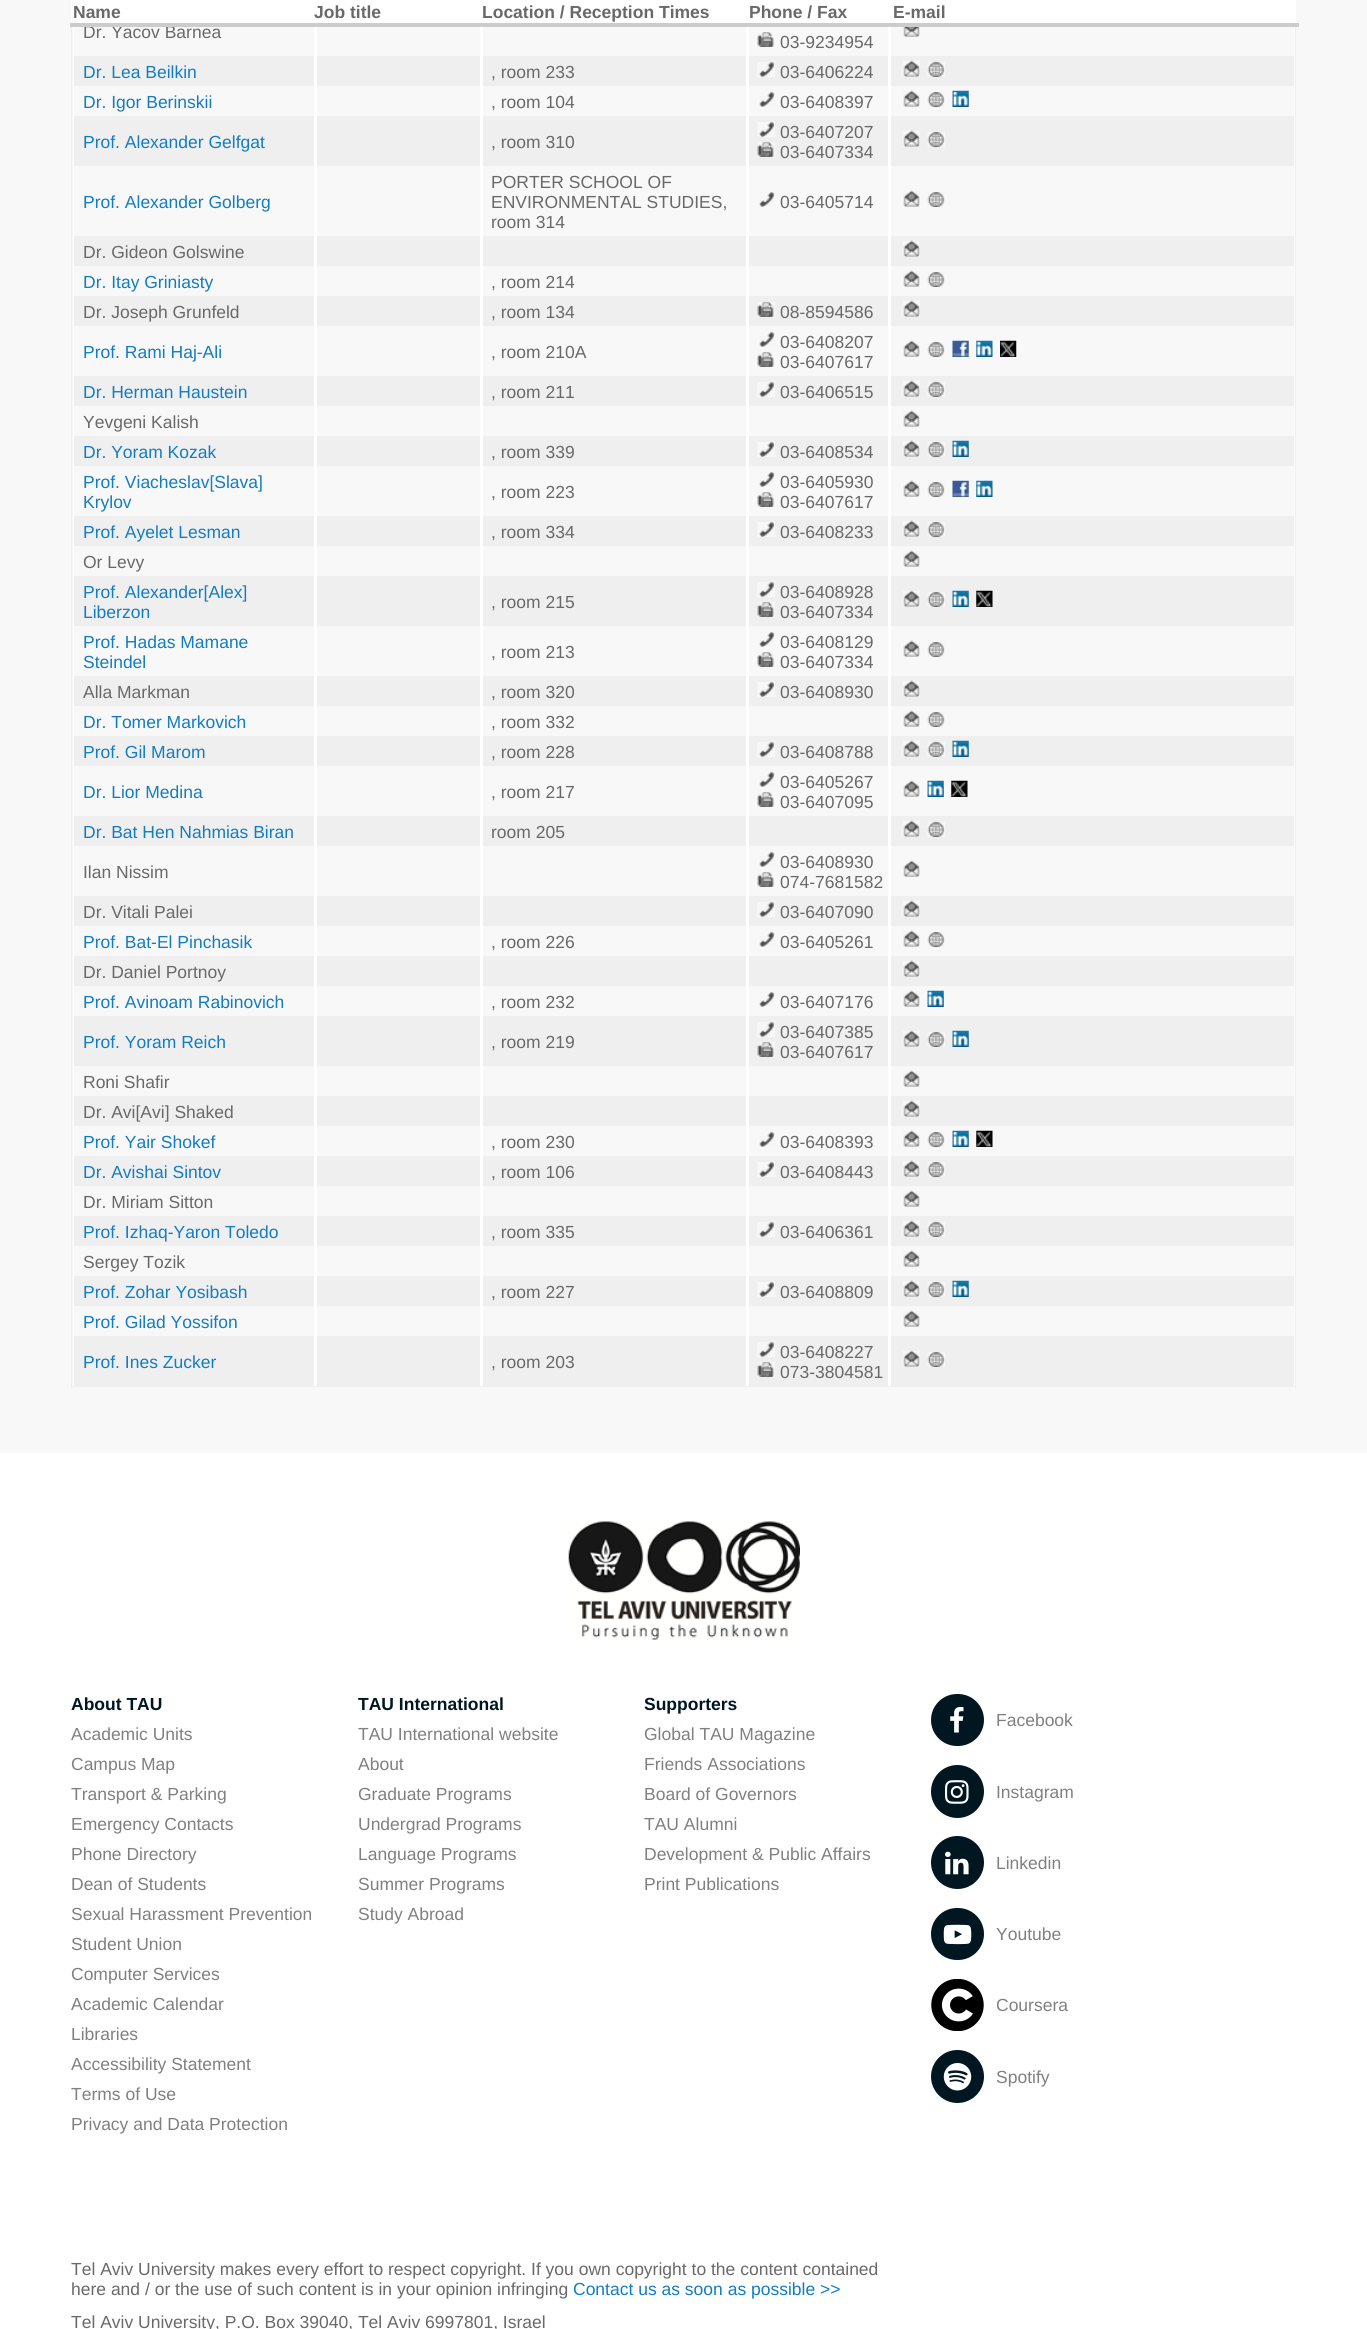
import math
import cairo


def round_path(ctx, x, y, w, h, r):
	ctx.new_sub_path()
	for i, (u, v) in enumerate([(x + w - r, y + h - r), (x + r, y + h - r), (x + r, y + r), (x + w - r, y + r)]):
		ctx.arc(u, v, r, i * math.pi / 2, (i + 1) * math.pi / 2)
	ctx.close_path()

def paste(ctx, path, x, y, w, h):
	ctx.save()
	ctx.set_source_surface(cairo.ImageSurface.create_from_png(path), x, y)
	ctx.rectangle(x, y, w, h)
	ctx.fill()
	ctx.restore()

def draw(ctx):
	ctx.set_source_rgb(0.969, 0.969, 0.969)
	ctx.paint()
	ctx.set_source_rgb(1, 1, 1)
	ctx.rectangle(71, 0, 1225, 23)
	ctx.fill()
	ctx.select_font_face('Liberation Sans', cairo.FONT_SLANT_NORMAL, cairo.FONT_WEIGHT_BOLD)
	ctx.set_font_size(17.5)
	ctx.set_source_rgb(0.412, 0.412, 0.412)
	for x, y, s in [
		(73, 18, 'Name'),
		(314, 18, 'Job title'),
		(482, 18, 'Location / Reception Times'),
		(749, 18, 'Phone / Fax'),
	]:
		ctx.move_to(x, y)
		ctx.show_text(s)
	ctx.select_font_face('Liberation Sans')
	ctx.move_to(83, 38)
	ctx.show_text('Dr. Yacov Barnea')
	ctx.set_source_rgb(0.8, 0.8, 0.8)
	ctx.rectangle(70, 23, 1229, 4)
	ctx.fill()
	ctx.select_font_face('Liberation Sans', cairo.FONT_SLANT_NORMAL, cairo.FONT_WEIGHT_BOLD)
	ctx.set_source_rgb(0.412, 0.412, 0.412)
	ctx.move_to(893, 18)
	ctx.show_text('E-mail')
	ctx.set_source_rgb(0.937, 0.937, 0.937)
	ctx.rectangle(1295, 27, 1, 1361)
	ctx.rectangle(71, 1386, 1225, 1)
	ctx.rectangle(71, 27, 1, 1361)
	ctx.fill()
	paste(ctx, 'media/1.png', 903, 27, 17, 10)
	paste(ctx, 'media/2.png', 757, 32, 17, 15)
	ctx.select_font_face('Liberation Sans')
	ctx.set_source_rgb(0.412, 0.412, 0.412)
	ctx.move_to(780, 48)
	ctx.show_text('03-9234954')
	ctx.set_source_rgb(0.937, 0.937, 0.937)
	ctx.rectangle(74, 56, 1220, 30)
	ctx.fill()
	ctx.set_source_rgb(1, 1, 1)
	ctx.rectangle(1294, 1335, 1, 51)
	ctx.rectangle(1294, 1275, 1, 63)
	ctx.rectangle(1294, 1215, 1, 63)
	ctx.rectangle(1294, 1155, 1, 63)
	ctx.rectangle(1294, 1095, 1, 63)
	ctx.rectangle(1294, 1015, 1, 83)
	ctx.rectangle(1294, 955, 1, 63)
	ctx.rectangle(1294, 895, 1, 63)
	ctx.rectangle(1294, 815, 1, 83)
	ctx.rectangle(1294, 735, 1, 83)
	ctx.rectangle(1294, 675, 1, 63)
	ctx.rectangle(1294, 575, 1, 103)
	ctx.rectangle(1294, 515, 1, 63)
	ctx.rectangle(1294, 435, 1, 83)
	ctx.rectangle(1294, 375, 1, 63)
	ctx.rectangle(1294, 295, 1, 83)
	ctx.rectangle(1294, 235, 1, 63)
	ctx.rectangle(1294, 115, 1, 123)
	ctx.rectangle(1294, 27, 1, 91)
	ctx.fill()
	ctx.set_source_rgb(0.078, 0.486, 0.761)
	ctx.move_to(83, 78)
	ctx.show_text('Dr. Lea Beilkin')
	ctx.set_source_rgb(0.412, 0.412, 0.412)
	ctx.move_to(491, 78)
	ctx.show_text(', room 233')
	paste(ctx, 'media/3.png', 757, 62, 18, 15)
	ctx.move_to(780, 78)
	ctx.show_text('03-6406224')
	paste(ctx, 'media/4.png', 902, 60, 18, 17)
	paste(ctx, 'media/5.png', 927, 62, 18, 15)
	ctx.set_source_rgb(0.078, 0.486, 0.761)
	ctx.move_to(83, 108)
	ctx.show_text('Dr. Igor Berinskii')
	ctx.set_source_rgb(0.412, 0.412, 0.412)
	ctx.move_to(491, 108)
	ctx.show_text(', room 104')
	paste(ctx, 'media/6.png', 759, 92, 16, 15)
	ctx.move_to(780, 108)
	ctx.show_text('03-6408397')
	paste(ctx, 'media/7.png', 903, 90, 17, 17)
	paste(ctx, 'media/8.png', 927, 92, 18, 15)
	paste(ctx, 'media/9.png', 952, 90, 17, 17)
	ctx.set_source_rgb(0.937, 0.937, 0.937)
	ctx.rectangle(74, 116, 1220, 50)
	ctx.fill()
	ctx.set_source_rgb(0.078, 0.486, 0.761)
	ctx.move_to(83, 148)
	ctx.show_text('Prof. Alexander Gelfgat')
	ctx.set_source_rgb(0.412, 0.412, 0.412)
	ctx.move_to(491, 148)
	ctx.show_text(', room 310')
	paste(ctx, 'media/3.png', 757, 122, 18, 15)
	ctx.move_to(780, 138)
	ctx.show_text('03-6407207')
	paste(ctx, 'media/10.png', 757, 142, 18, 15)
	ctx.move_to(780, 158)
	ctx.show_text('03-6407334')
	paste(ctx, 'media/4.png', 902, 130, 18, 17)
	paste(ctx, 'media/5.png', 927, 132, 18, 15)
	ctx.set_source_rgb(0.078, 0.486, 0.761)
	ctx.move_to(83, 208)
	ctx.show_text('Prof. Alexander Golberg')
	ctx.set_source_rgb(0.412, 0.412, 0.412)
	for x, y, s in [
		(491, 188, 'PORTER SCHOOL OF'),
		(491, 208, 'ENVIRONMENTAL STUDIES,'),
		(491, 228, 'room 314'),
	]:
		ctx.move_to(x, y)
		ctx.show_text(s)
	paste(ctx, 'media/6.png', 759, 192, 16, 15)
	ctx.move_to(780, 208)
	ctx.show_text('03-6405714')
	paste(ctx, 'media/7.png', 903, 190, 17, 17)
	paste(ctx, 'media/8.png', 927, 192, 18, 15)
	ctx.set_source_rgb(0.937, 0.937, 0.937)
	ctx.rectangle(74, 236, 1220, 30)
	ctx.fill()
	ctx.set_source_rgb(0.412, 0.412, 0.412)
	ctx.move_to(83, 258)
	ctx.show_text('Dr. Gideon Golswine')
	paste(ctx, 'media/4.png', 902, 240, 18, 17)
	ctx.set_source_rgb(0.078, 0.486, 0.761)
	ctx.move_to(83, 288)
	ctx.show_text('Dr. Itay Griniasty')
	ctx.set_source_rgb(0.412, 0.412, 0.412)
	ctx.move_to(491, 288)
	ctx.show_text(', room 214')
	paste(ctx, 'media/7.png', 903, 270, 17, 17)
	paste(ctx, 'media/8.png', 927, 272, 18, 15)
	ctx.set_source_rgb(0.937, 0.937, 0.937)
	ctx.rectangle(74, 296, 1220, 30)
	ctx.fill()
	ctx.set_source_rgb(0.412, 0.412, 0.412)
	ctx.move_to(83, 318)
	ctx.show_text('Dr. Joseph Grunfeld')
	ctx.move_to(491, 318)
	ctx.show_text(', room 134')
	paste(ctx, 'media/10.png', 757, 302, 18, 15)
	ctx.move_to(780, 318)
	ctx.show_text('08-8594586')
	paste(ctx, 'media/4.png', 902, 300, 18, 17)
	ctx.set_source_rgb(0.078, 0.486, 0.761)
	ctx.move_to(83, 358)
	ctx.show_text('Prof. Rami Haj-Ali')
	ctx.set_source_rgb(0.412, 0.412, 0.412)
	ctx.move_to(491, 358)
	ctx.show_text(', room 210A')
	paste(ctx, 'media/6.png', 759, 332, 16, 15)
	ctx.move_to(780, 348)
	ctx.show_text('03-6408207')
	paste(ctx, 'media/2.png', 757, 352, 17, 15)
	ctx.move_to(780, 368)
	ctx.show_text('03-6407617')
	paste(ctx, 'media/7.png', 903, 340, 17, 17)
	paste(ctx, 'media/8.png', 927, 342, 18, 15)
	paste(ctx, 'media/11.png', 952, 340, 17, 17)
	paste(ctx, 'media/12.png', 976, 340, 17, 17)
	paste(ctx, 'media/13.png', 1000, 340, 17, 17)
	ctx.set_source_rgb(0.937, 0.937, 0.937)
	ctx.rectangle(74, 376, 1220, 30)
	ctx.fill()
	ctx.set_source_rgb(0.078, 0.486, 0.761)
	ctx.move_to(83, 398)
	ctx.show_text('Dr. Herman Haustein')
	ctx.set_source_rgb(0.412, 0.412, 0.412)
	ctx.move_to(491, 398)
	ctx.show_text(', room 211')
	paste(ctx, 'media/3.png', 757, 382, 18, 15)
	ctx.move_to(780, 398)
	ctx.show_text('03-6406515')
	paste(ctx, 'media/4.png', 902, 380, 18, 17)
	paste(ctx, 'media/5.png', 927, 382, 18, 15)
	ctx.move_to(83, 428)
	ctx.show_text('Yevgeni Kalish')
	paste(ctx, 'media/7.png', 903, 410, 17, 17)
	ctx.set_source_rgb(0.937, 0.937, 0.937)
	ctx.rectangle(74, 436, 1220, 30)
	ctx.fill()
	ctx.set_source_rgb(0.078, 0.486, 0.761)
	ctx.move_to(83, 458)
	ctx.show_text('Dr. Yoram Kozak')
	ctx.set_source_rgb(0.412, 0.412, 0.412)
	ctx.move_to(491, 458)
	ctx.show_text(', room 339')
	paste(ctx, 'media/3.png', 757, 442, 18, 15)
	ctx.move_to(780, 458)
	ctx.show_text('03-6408534')
	paste(ctx, 'media/4.png', 902, 440, 18, 17)
	paste(ctx, 'media/5.png', 927, 442, 18, 15)
	paste(ctx, 'media/14.png', 952, 440, 17, 17)
	ctx.set_source_rgb(0.078, 0.486, 0.761)
	ctx.move_to(83, 488)
	ctx.show_text('Prof. Viacheslav[Slava]')
	ctx.move_to(83, 508)
	ctx.show_text('Krylov')
	ctx.set_source_rgb(0.412, 0.412, 0.412)
	ctx.move_to(491, 498)
	ctx.show_text(', room 223')
	paste(ctx, 'media/6.png', 759, 472, 16, 15)
	ctx.move_to(780, 488)
	ctx.show_text('03-6405930')
	paste(ctx, 'media/2.png', 757, 492, 17, 15)
	ctx.move_to(780, 508)
	ctx.show_text('03-6407617')
	paste(ctx, 'media/7.png', 903, 480, 17, 17)
	paste(ctx, 'media/8.png', 927, 482, 18, 15)
	paste(ctx, 'media/11.png', 952, 480, 17, 17)
	paste(ctx, 'media/12.png', 976, 480, 17, 17)
	ctx.set_source_rgb(0.937, 0.937, 0.937)
	ctx.rectangle(74, 516, 1220, 30)
	ctx.fill()
	ctx.set_source_rgb(0.078, 0.486, 0.761)
	ctx.move_to(83, 538)
	ctx.show_text('Prof. Ayelet Lesman')
	ctx.set_source_rgb(0.412, 0.412, 0.412)
	ctx.move_to(491, 538)
	ctx.show_text(', room 334')
	paste(ctx, 'media/3.png', 757, 522, 18, 15)
	ctx.move_to(780, 538)
	ctx.show_text('03-6408233')
	paste(ctx, 'media/4.png', 902, 520, 18, 17)
	paste(ctx, 'media/5.png', 927, 522, 18, 15)
	ctx.move_to(83, 568)
	ctx.show_text('Or Levy')
	paste(ctx, 'media/7.png', 903, 550, 17, 17)
	ctx.set_source_rgb(0.937, 0.937, 0.937)
	ctx.rectangle(74, 576, 1220, 50)
	ctx.fill()
	ctx.set_source_rgb(0.078, 0.486, 0.761)
	ctx.move_to(83, 598)
	ctx.show_text('Prof. Alexander[Alex]')
	ctx.move_to(83, 618)
	ctx.show_text('Liberzon')
	ctx.set_source_rgb(0.412, 0.412, 0.412)
	ctx.move_to(491, 608)
	ctx.show_text(', room 215')
	paste(ctx, 'media/3.png', 757, 582, 18, 15)
	ctx.move_to(780, 598)
	ctx.show_text('03-6408928')
	paste(ctx, 'media/10.png', 757, 602, 18, 15)
	ctx.move_to(780, 618)
	ctx.show_text('03-6407334')
	paste(ctx, 'media/4.png', 902, 590, 18, 17)
	paste(ctx, 'media/5.png', 927, 592, 18, 15)
	paste(ctx, 'media/14.png', 952, 590, 17, 17)
	paste(ctx, 'media/15.png', 976, 590, 17, 17)
	ctx.set_source_rgb(0.078, 0.486, 0.761)
	ctx.move_to(83, 648)
	ctx.show_text('Prof. Hadas Mamane')
	ctx.move_to(83, 668)
	ctx.show_text('Steindel')
	ctx.set_source_rgb(0.412, 0.412, 0.412)
	ctx.move_to(491, 658)
	ctx.show_text(', room 213')
	paste(ctx, 'media/6.png', 759, 632, 16, 15)
	ctx.move_to(780, 648)
	ctx.show_text('03-6408129')
	paste(ctx, 'media/2.png', 757, 652, 17, 15)
	ctx.move_to(780, 668)
	ctx.show_text('03-6407334')
	paste(ctx, 'media/7.png', 903, 640, 17, 17)
	paste(ctx, 'media/8.png', 927, 642, 18, 15)
	ctx.set_source_rgb(0.937, 0.937, 0.937)
	ctx.rectangle(74, 676, 1220, 30)
	ctx.fill()
	ctx.set_source_rgb(0.412, 0.412, 0.412)
	ctx.move_to(83, 698)
	ctx.show_text('Alla Markman')
	ctx.move_to(491, 698)
	ctx.show_text(', room 320')
	paste(ctx, 'media/3.png', 757, 682, 18, 15)
	ctx.move_to(780, 698)
	ctx.show_text('03-6408930')
	paste(ctx, 'media/4.png', 902, 680, 18, 17)
	ctx.set_source_rgb(0.078, 0.486, 0.761)
	ctx.move_to(83, 728)
	ctx.show_text('Dr. Tomer Markovich')
	ctx.set_source_rgb(0.412, 0.412, 0.412)
	ctx.move_to(491, 728)
	ctx.show_text(', room 332')
	paste(ctx, 'media/7.png', 903, 710, 17, 17)
	paste(ctx, 'media/8.png', 927, 712, 18, 15)
	ctx.set_source_rgb(0.937, 0.937, 0.937)
	ctx.rectangle(74, 736, 1220, 30)
	ctx.fill()
	ctx.set_source_rgb(0.078, 0.486, 0.761)
	ctx.move_to(83, 758)
	ctx.show_text('Prof. Gil Marom')
	ctx.set_source_rgb(0.412, 0.412, 0.412)
	ctx.move_to(491, 758)
	ctx.show_text(', room 228')
	paste(ctx, 'media/3.png', 757, 742, 18, 15)
	ctx.move_to(780, 758)
	ctx.show_text('03-6408788')
	paste(ctx, 'media/4.png', 902, 740, 18, 17)
	paste(ctx, 'media/5.png', 927, 742, 18, 15)
	paste(ctx, 'media/14.png', 952, 740, 17, 17)
	ctx.set_source_rgb(0.078, 0.486, 0.761)
	ctx.move_to(83, 798)
	ctx.show_text('Dr. Lior Medina')
	ctx.set_source_rgb(0.412, 0.412, 0.412)
	ctx.move_to(491, 798)
	ctx.show_text(', room 217')
	paste(ctx, 'media/6.png', 759, 772, 16, 15)
	ctx.move_to(780, 788)
	ctx.show_text('03-6405267')
	paste(ctx, 'media/2.png', 757, 792, 17, 15)
	ctx.move_to(780, 808)
	ctx.show_text('03-6407095')
	paste(ctx, 'media/7.png', 903, 780, 17, 17)
	paste(ctx, 'media/9.png', 927, 780, 17, 17)
	paste(ctx, 'media/16.png', 951, 780, 17, 17)
	ctx.set_source_rgb(0.937, 0.937, 0.937)
	ctx.rectangle(74, 816, 1220, 30)
	ctx.fill()
	ctx.set_source_rgb(0.078, 0.486, 0.761)
	ctx.move_to(83, 838)
	ctx.show_text('Dr. Bat Hen Nahmias Biran')
	ctx.set_source_rgb(0.412, 0.412, 0.412)
	ctx.move_to(491, 838)
	ctx.show_text('room 205')
	paste(ctx, 'media/17.png', 902, 820, 18, 17)
	paste(ctx, 'media/18.png', 927, 822, 18, 15)
	ctx.move_to(83, 878)
	ctx.show_text('Ilan Nissim')
	paste(ctx, 'media/6.png', 759, 852, 16, 15)
	ctx.move_to(780, 868)
	ctx.show_text('03-6408930')
	paste(ctx, 'media/2.png', 757, 872, 17, 15)
	ctx.move_to(780, 888)
	ctx.show_text('074-7681582')
	paste(ctx, 'media/7.png', 903, 860, 17, 17)
	ctx.set_source_rgb(0.937, 0.937, 0.937)
	ctx.rectangle(74, 896, 1220, 30)
	ctx.fill()
	ctx.set_source_rgb(0.412, 0.412, 0.412)
	ctx.move_to(83, 918)
	ctx.show_text('Dr. Vitali Palei')
	paste(ctx, 'media/3.png', 757, 902, 18, 15)
	ctx.move_to(780, 918)
	ctx.show_text('03-6407090')
	paste(ctx, 'media/4.png', 902, 900, 18, 17)
	ctx.set_source_rgb(0.078, 0.486, 0.761)
	ctx.move_to(83, 948)
	ctx.show_text('Prof. Bat-El Pinchasik')
	ctx.set_source_rgb(0.412, 0.412, 0.412)
	ctx.move_to(491, 948)
	ctx.show_text(', room 226')
	paste(ctx, 'media/6.png', 759, 932, 16, 15)
	ctx.move_to(780, 948)
	ctx.show_text('03-6405261')
	paste(ctx, 'media/7.png', 903, 930, 17, 17)
	paste(ctx, 'media/8.png', 927, 932, 18, 15)
	ctx.set_source_rgb(0.937, 0.937, 0.937)
	ctx.rectangle(74, 956, 1220, 30)
	ctx.fill()
	ctx.set_source_rgb(0.412, 0.412, 0.412)
	ctx.move_to(83, 978)
	ctx.show_text('Dr. Daniel Portnoy')
	paste(ctx, 'media/4.png', 902, 960, 18, 17)
	ctx.set_source_rgb(0.078, 0.486, 0.761)
	ctx.move_to(83, 1008)
	ctx.show_text('Prof. Avinoam Rabinovich')
	ctx.set_source_rgb(0.412, 0.412, 0.412)
	ctx.move_to(491, 1008)
	ctx.show_text(', room 232')
	paste(ctx, 'media/6.png', 759, 992, 16, 15)
	ctx.move_to(780, 1008)
	ctx.show_text('03-6407176')
	paste(ctx, 'media/7.png', 903, 990, 17, 17)
	paste(ctx, 'media/9.png', 927, 990, 17, 17)
	ctx.set_source_rgb(0.937, 0.937, 0.937)
	ctx.rectangle(74, 1016, 1220, 50)
	ctx.fill()
	ctx.set_source_rgb(0.078, 0.486, 0.761)
	ctx.move_to(83, 1048)
	ctx.show_text('Prof. Yoram Reich')
	ctx.set_source_rgb(0.412, 0.412, 0.412)
	ctx.move_to(491, 1048)
	ctx.show_text(', room 219')
	paste(ctx, 'media/3.png', 757, 1022, 18, 15)
	ctx.move_to(780, 1038)
	ctx.show_text('03-6407385')
	paste(ctx, 'media/10.png', 757, 1042, 18, 15)
	ctx.move_to(780, 1058)
	ctx.show_text('03-6407617')
	paste(ctx, 'media/4.png', 902, 1030, 18, 17)
	paste(ctx, 'media/5.png', 927, 1032, 18, 15)
	paste(ctx, 'media/14.png', 952, 1030, 17, 17)
	ctx.move_to(83, 1088)
	ctx.show_text('Roni Shafir')
	paste(ctx, 'media/7.png', 903, 1070, 17, 17)
	ctx.set_source_rgb(0.937, 0.937, 0.937)
	ctx.rectangle(74, 1096, 1220, 30)
	ctx.fill()
	ctx.set_source_rgb(0.412, 0.412, 0.412)
	ctx.move_to(83, 1118)
	ctx.show_text('Dr. Avi[Avi] Shaked')
	paste(ctx, 'media/4.png', 902, 1100, 18, 17)
	ctx.set_source_rgb(0.078, 0.486, 0.761)
	ctx.move_to(83, 1148)
	ctx.show_text('Prof. Yair Shokef')
	ctx.set_source_rgb(0.412, 0.412, 0.412)
	ctx.move_to(491, 1148)
	ctx.show_text(', room 230')
	paste(ctx, 'media/6.png', 759, 1132, 16, 15)
	ctx.move_to(780, 1148)
	ctx.show_text('03-6408393')
	paste(ctx, 'media/7.png', 903, 1130, 17, 17)
	paste(ctx, 'media/8.png', 927, 1132, 18, 15)
	paste(ctx, 'media/9.png', 952, 1130, 17, 17)
	paste(ctx, 'media/16.png', 976, 1130, 17, 17)
	ctx.set_source_rgb(0.937, 0.937, 0.937)
	ctx.rectangle(74, 1156, 1220, 30)
	ctx.fill()
	ctx.set_source_rgb(0.078, 0.486, 0.761)
	ctx.move_to(83, 1178)
	ctx.show_text('Dr. Avishai Sintov')
	ctx.set_source_rgb(0.412, 0.412, 0.412)
	ctx.move_to(491, 1178)
	ctx.show_text(', room 106')
	paste(ctx, 'media/3.png', 757, 1162, 18, 15)
	ctx.move_to(780, 1178)
	ctx.show_text('03-6408443')
	paste(ctx, 'media/4.png', 902, 1160, 18, 17)
	paste(ctx, 'media/5.png', 927, 1162, 18, 15)
	ctx.move_to(83, 1208)
	ctx.show_text('Dr. Miriam Sitton')
	paste(ctx, 'media/7.png', 903, 1190, 17, 17)
	ctx.set_source_rgb(0.937, 0.937, 0.937)
	ctx.rectangle(74, 1216, 1220, 30)
	ctx.fill()
	ctx.set_source_rgb(0.078, 0.486, 0.761)
	ctx.move_to(83, 1238)
	ctx.show_text('Prof. Izhaq-Yaron Toledo')
	ctx.set_source_rgb(0.412, 0.412, 0.412)
	ctx.move_to(491, 1238)
	ctx.show_text(', room 335')
	paste(ctx, 'media/3.png', 757, 1222, 18, 15)
	ctx.move_to(780, 1238)
	ctx.show_text('03-6406361')
	paste(ctx, 'media/4.png', 902, 1220, 18, 17)
	paste(ctx, 'media/5.png', 927, 1222, 18, 15)
	ctx.move_to(83, 1268)
	ctx.show_text('Sergey Tozik')
	paste(ctx, 'media/7.png', 903, 1250, 17, 17)
	ctx.set_source_rgb(0.937, 0.937, 0.937)
	ctx.rectangle(74, 1276, 1220, 30)
	ctx.fill()
	ctx.set_source_rgb(0.078, 0.486, 0.761)
	ctx.move_to(83, 1298)
	ctx.show_text('Prof. Zohar Yosibash')
	ctx.set_source_rgb(0.412, 0.412, 0.412)
	ctx.move_to(491, 1298)
	ctx.show_text(', room 227')
	paste(ctx, 'media/3.png', 757, 1282, 18, 15)
	ctx.move_to(780, 1298)
	ctx.show_text('03-6408809')
	paste(ctx, 'media/4.png', 902, 1280, 18, 17)
	paste(ctx, 'media/5.png', 927, 1282, 18, 15)
	paste(ctx, 'media/14.png', 952, 1280, 17, 17)
	ctx.set_source_rgb(0.078, 0.486, 0.761)
	ctx.move_to(83, 1328)
	ctx.show_text('Prof. Gilad Yossifon')
	paste(ctx, 'media/19.png', 903, 1310, 17, 17)
	ctx.set_source_rgb(0.937, 0.937, 0.937)
	ctx.rectangle(74, 1336, 1220, 50)
	ctx.fill()
	ctx.set_source_rgb(1, 1, 1)
	ctx.rectangle(73, 27, 1, 1359)
	ctx.fill()
	ctx.set_source_rgb(0.078, 0.486, 0.761)
	ctx.move_to(83, 1368)
	ctx.show_text('Prof. Ines Zucker')
	ctx.set_source_rgb(1, 1, 1)
	ctx.rectangle(314, 27, 3, 1359)
	ctx.fill()
	ctx.rectangle(480, 27, 3, 1359)
	ctx.fill()
	ctx.set_source_rgb(0.412, 0.412, 0.412)
	ctx.move_to(491, 1368)
	ctx.show_text(', room 203')
	ctx.set_source_rgb(1, 1, 1)
	ctx.rectangle(746, 27, 3, 1359)
	ctx.fill()
	paste(ctx, 'media/3.png', 757, 1342, 18, 15)
	ctx.set_source_rgb(0.412, 0.412, 0.412)
	ctx.move_to(780, 1358)
	ctx.show_text('03-6408227')
	paste(ctx, 'media/10.png', 757, 1362, 18, 15)
	ctx.move_to(780, 1378)
	ctx.show_text('073-3804581')
	ctx.set_source_rgb(1, 1, 1)
	ctx.rectangle(888, 27, 3, 1359)
	ctx.fill()
	paste(ctx, 'media/4.png', 902, 1350, 18, 17)
	paste(ctx, 'media/5.png', 927, 1352, 18, 15)
	ctx.rectangle(0, 1453, 1367, 876)
	ctx.fill()
	paste(ctx, 'media/20.png', 568, 1521, 232, 119)
	ctx.select_font_face('Liberation Sans', cairo.FONT_SLANT_NORMAL, cairo.FONT_WEIGHT_BOLD)
	ctx.set_source_rgb(0, 0.09, 0.129)
	ctx.move_to(71, 1710)
	ctx.show_text('About TAU')
	ctx.select_font_face('Liberation Sans')
	ctx.set_source_rgb(0.502, 0.502, 0.502)
	for x, y, s in [
		(71, 1740, 'Academic Units'),
		(71, 1770, 'Campus Map'),
		(71, 1800, 'Transport & Parking'),
		(71, 1830, 'Emergency Contacts'),
		(71, 1860, 'Phone Directory'),
		(71, 1890, 'Dean of Students'),
		(71, 1920, 'Sexual Harassment Prevention'),
		(71, 1950, 'Student Union'),
		(71, 1980, 'Computer Services'),
		(71, 2010, 'Academic Calendar'),
		(71, 2040, 'Libraries'),
		(71, 2070, 'Accessibility Statement'),
		(71, 2100, 'Terms of Use'),
		(71, 2130, 'Privacy and Data Protection'),
	]:
		ctx.move_to(x, y)
		ctx.show_text(s)
	ctx.select_font_face('Liberation Sans', cairo.FONT_SLANT_NORMAL, cairo.FONT_WEIGHT_BOLD)
	ctx.set_source_rgb(0, 0.09, 0.129)
	ctx.move_to(358, 1710)
	ctx.show_text('TAU International')
	ctx.select_font_face('Liberation Sans')
	ctx.set_source_rgb(0.502, 0.502, 0.502)
	for x, y, s in [
		(358, 1740, 'TAU International website'),
		(358, 1770, 'About'),
		(358, 1800, 'Graduate Programs'),
		(358, 1830, 'Undergrad Programs'),
		(358, 1860, 'Language Programs'),
		(358, 1890, 'Summer Programs'),
		(358, 1920, 'Study Abroad'),
	]:
		ctx.move_to(x, y)
		ctx.show_text(s)
	ctx.select_font_face('Liberation Sans', cairo.FONT_SLANT_NORMAL, cairo.FONT_WEIGHT_BOLD)
	ctx.set_source_rgb(0, 0.09, 0.129)
	ctx.move_to(644, 1710)
	ctx.show_text('Supporters')
	ctx.select_font_face('Liberation Sans')
	ctx.set_source_rgb(0.502, 0.502, 0.502)
	for x, y, s in [
		(644, 1740, 'Global TAU Magazine'),
		(644, 1770, 'Friends Associations'),
		(644, 1800, 'Board of Governors'),
		(644, 1830, 'TAU Alumni'),
		(644, 1860, 'Development & Public Affairs'),
		(644, 1890, 'Print Publications'),
	]:
		ctx.move_to(x, y)
		ctx.show_text(s)
	ctx.set_source_rgb(0, 0.09, 0.129)
	round_path(ctx, 931, 1694, 53, 52, 26)
	ctx.fill()
	paste(ctx, 'media/21.png', 950, 1707, 14, 26)
	ctx.set_source_rgb(0.502, 0.502, 0.502)
	ctx.move_to(996, 1726)
	ctx.show_text('Facebook')
	ctx.set_source_rgb(0, 0.09, 0.129)
	ctx.new_path()
	ctx.arc(957.5, 1791.5, 26.5, 0, 2 * math.pi)
	ctx.fill()
	paste(ctx, 'media/22.png', 945, 1780, 24, 24)
	ctx.set_source_rgb(0.502, 0.502, 0.502)
	ctx.move_to(996, 1798)
	ctx.show_text('Instagram')
	ctx.set_source_rgb(0, 0.09, 0.129)
	ctx.new_path()
	ctx.arc(957.5, 1862.5, 26.5, 0, 2 * math.pi)
	ctx.fill()
	paste(ctx, 'media/23.png', 945, 1851, 24, 24)
	ctx.set_source_rgb(0.502, 0.502, 0.502)
	ctx.move_to(996, 1869)
	ctx.show_text('Linkedin')
	ctx.set_source_rgb(0, 0.09, 0.129)
	round_path(ctx, 931, 1908, 53, 52, 26)
	ctx.fill()
	paste(ctx, 'media/24.png', 943, 1924, 29, 21)
	ctx.set_source_rgb(0.502, 0.502, 0.502)
	ctx.move_to(996, 1940)
	ctx.show_text('Youtube')
	paste(ctx, 'media/25.png', 931, 1979, 53, 52)
	ctx.move_to(996, 2011)
	ctx.show_text('Coursera')
	ctx.set_source_rgb(0, 0.09, 0.129)
	ctx.new_path()
	ctx.arc(957.5, 2076.5, 26.5, 0, 2 * math.pi)
	ctx.fill()
	paste(ctx, 'media/26.png', 943, 2063, 29, 28)
	ctx.set_source_rgb(0.502, 0.502, 0.502)
	ctx.move_to(996, 2083)
	ctx.show_text('Spotify')
	ctx.set_source_rgb(0.412, 0.412, 0.412)
	ctx.move_to(71, 2275)
	ctx.show_text('Tel Aviv University makes every effort to respect copyright. If you own copyright to the content contained')
	ctx.move_to(71, 2295)
	ctx.show_text('here and / or the use of such content is in your opinion infringing')
	ctx.set_source_rgb(0.078, 0.486, 0.761)
	ctx.move_to(573, 2295)
	ctx.show_text('Contact us as soon as possible >>')
	ctx.set_source_rgb(0.412, 0.412, 0.412)
	ctx.move_to(71, 2328)
	ctx.show_text('Tel Aviv University, P.O. Box 39040, Tel Aviv 6997801, Israel')


surface = cairo.ImageSurface(cairo.FORMAT_RGB24, 1367, 2329)
ctx = cairo.Context(surface)
options = cairo.FontOptions()
options.set_hint_metrics(cairo.HINT_METRICS_OFF)
options.set_hint_style(cairo.HINT_STYLE_NONE)
ctx.set_font_options(options)
ctx.set_miter_limit(4)
draw(ctx)
surface.write_to_png('image.png')
